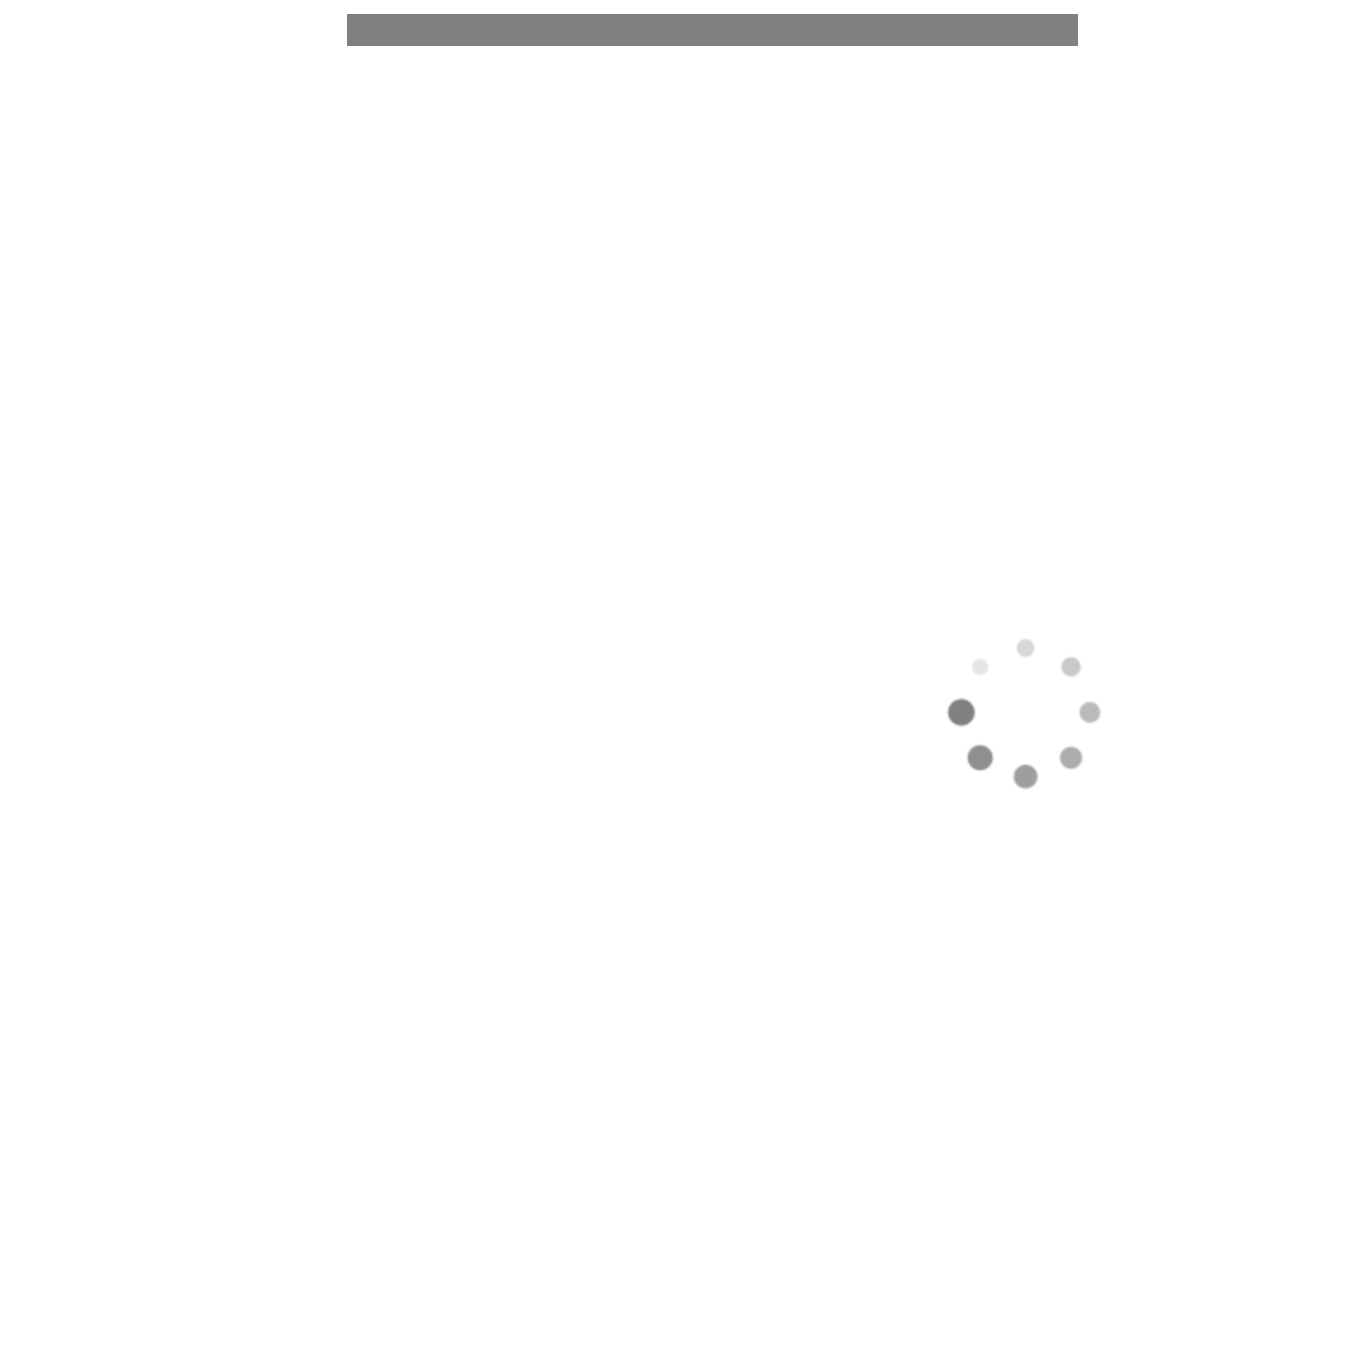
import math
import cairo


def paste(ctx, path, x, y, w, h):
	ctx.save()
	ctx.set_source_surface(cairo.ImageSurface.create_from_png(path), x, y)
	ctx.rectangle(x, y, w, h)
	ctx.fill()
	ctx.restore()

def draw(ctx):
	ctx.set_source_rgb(1, 1, 1)
	ctx.paint()
	ctx.set_source_rgb(0.502, 0.502, 0.502)
	ctx.rectangle(347, 14, 731, 32)
	ctx.fill()
	paste(ctx, 'media/1.png', 946, 638, 156, 152)


surface = cairo.ImageSurface(cairo.FORMAT_RGB24, 1357, 1347)
ctx = cairo.Context(surface)
options = cairo.FontOptions()
options.set_hint_metrics(cairo.HINT_METRICS_OFF)
options.set_hint_style(cairo.HINT_STYLE_NONE)
ctx.set_font_options(options)
ctx.set_miter_limit(4)
draw(ctx)
surface.write_to_png('image.png')
